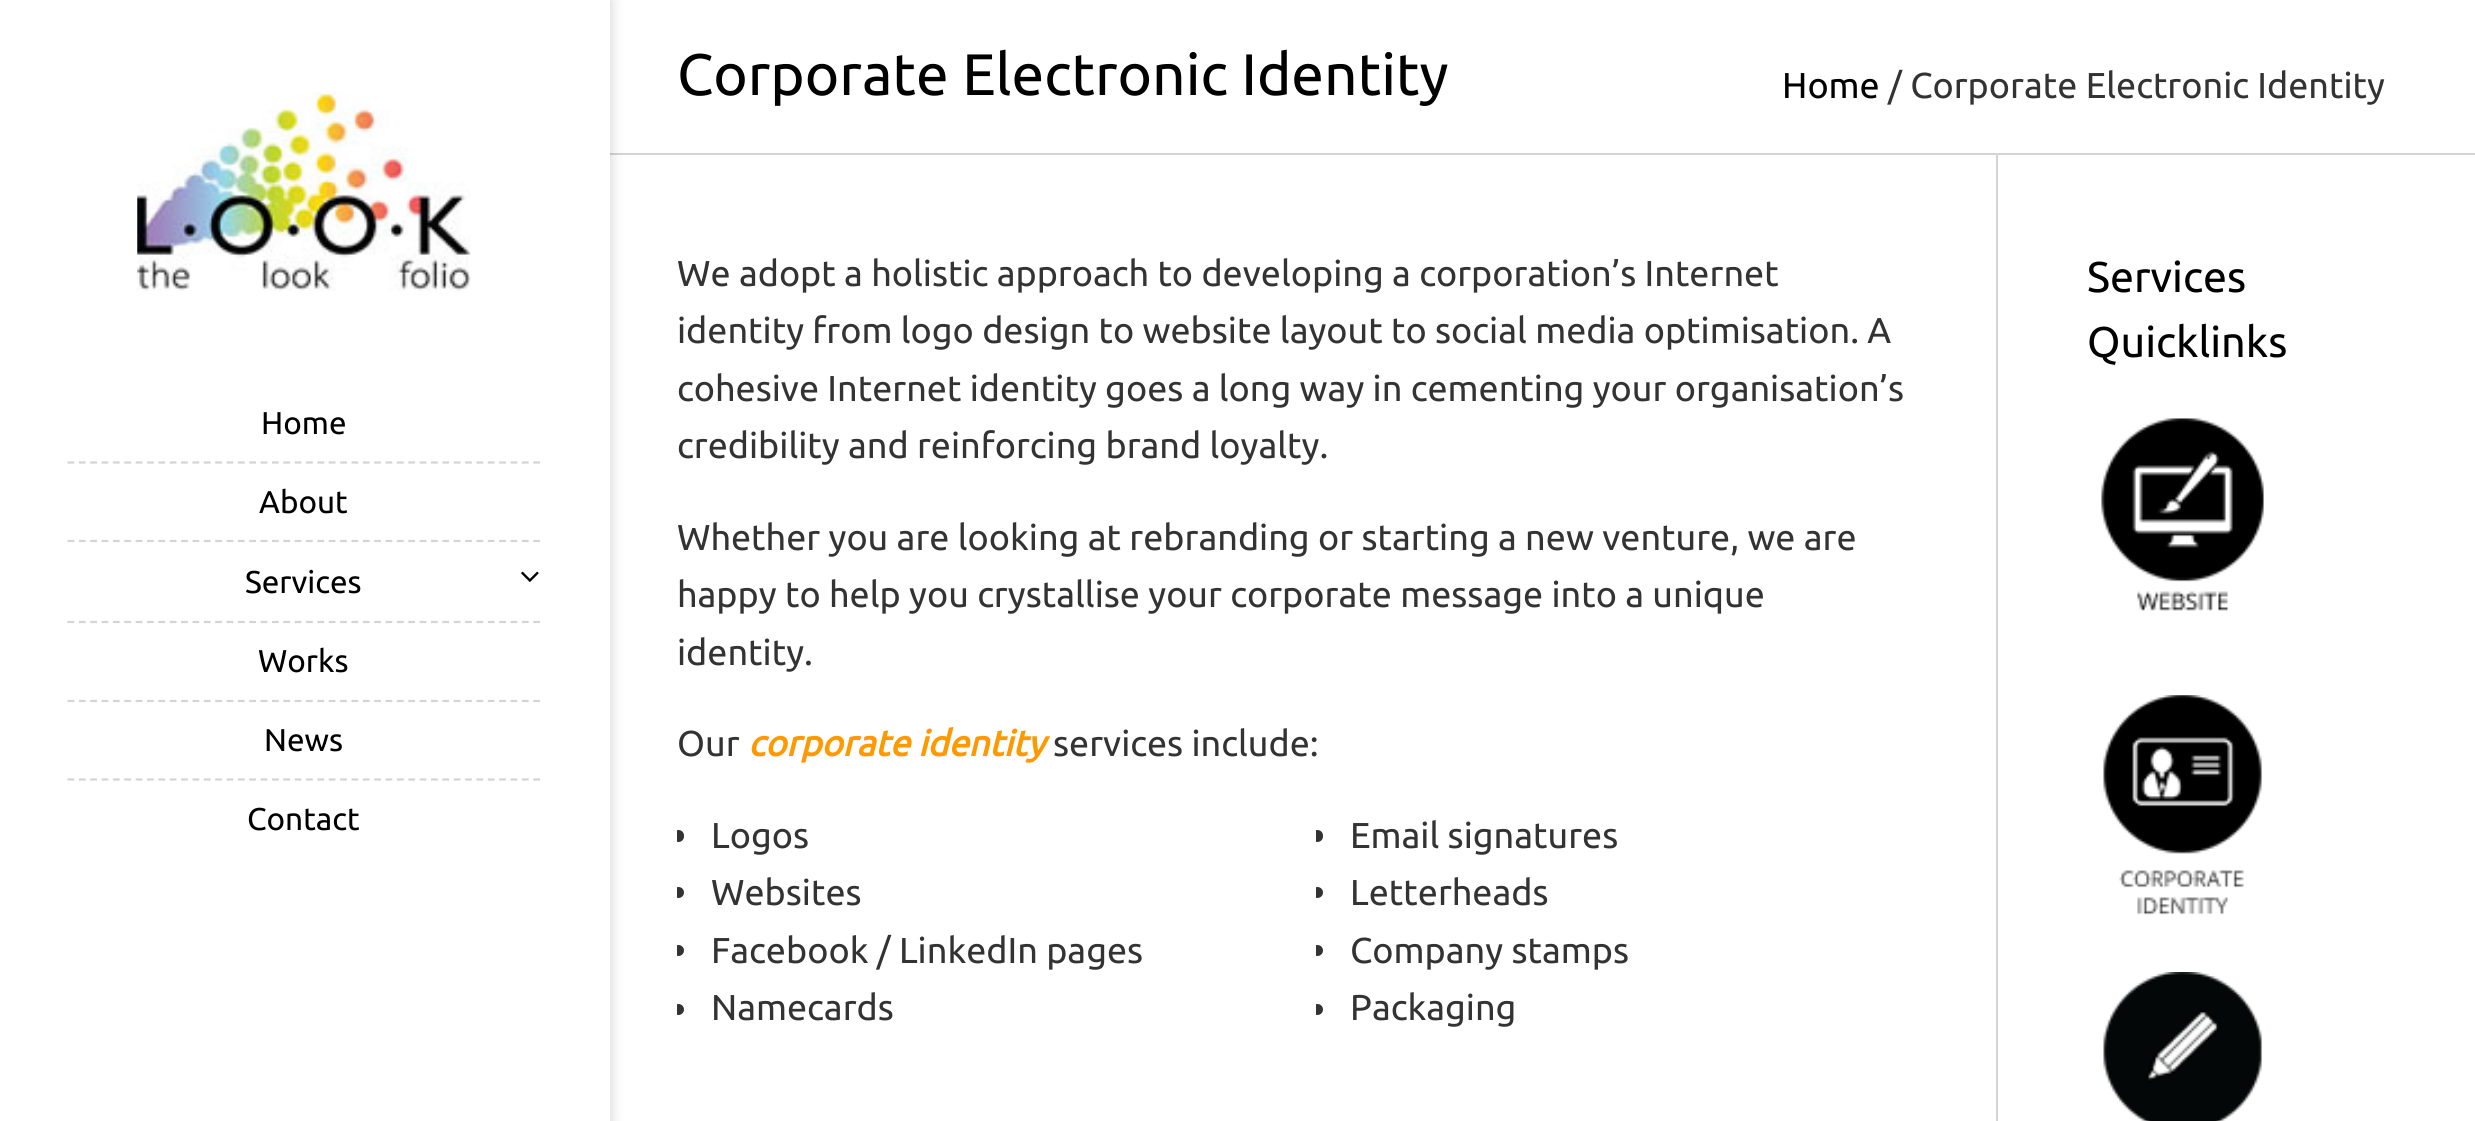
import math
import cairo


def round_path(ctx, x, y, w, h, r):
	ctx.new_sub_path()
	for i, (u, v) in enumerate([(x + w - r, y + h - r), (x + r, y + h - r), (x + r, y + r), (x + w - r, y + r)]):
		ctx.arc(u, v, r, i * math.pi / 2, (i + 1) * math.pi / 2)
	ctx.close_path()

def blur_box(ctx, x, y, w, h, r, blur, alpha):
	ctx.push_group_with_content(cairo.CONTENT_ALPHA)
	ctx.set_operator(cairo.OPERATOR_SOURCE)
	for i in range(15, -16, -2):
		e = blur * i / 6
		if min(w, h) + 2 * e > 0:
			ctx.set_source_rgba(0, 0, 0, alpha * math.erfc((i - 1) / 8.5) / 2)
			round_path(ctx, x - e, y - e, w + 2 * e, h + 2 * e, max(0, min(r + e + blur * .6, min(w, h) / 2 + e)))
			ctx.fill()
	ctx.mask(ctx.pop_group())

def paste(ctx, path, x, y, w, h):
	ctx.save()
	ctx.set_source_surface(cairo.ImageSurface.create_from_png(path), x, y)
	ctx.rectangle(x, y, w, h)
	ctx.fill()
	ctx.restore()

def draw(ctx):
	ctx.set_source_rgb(1, 1, 1)
	ctx.paint()
	ctx.set_source_rgb(0.831, 0.831, 0.831)
	ctx.rectangle(610, 153, 1865, 2)
	ctx.fill()
	ctx.set_source_rgb(0, 0, 0)
	blur_box(ctx, 0, 0, 610, 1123, 0, 7, 0.2)
	ctx.set_source_rgb(1, 1, 1)
	ctx.rectangle(0, 0, 610, 1121)
	ctx.fill()
	paste(ctx, 'media/1.png', 137, 92, 334, 199)
	ctx.new_path()
	ctx.move_to(67.5, 462.5)
	ctx.line_to(540, 462.5)
	ctx.set_source_rgb(0.831, 0.831, 0.831)
	ctx.set_line_width(2.2)
	ctx.set_dash([6.75, 4.61])
	ctx.stroke()
	ctx.select_font_face('Ubuntu')
	ctx.set_font_size(31.5)
	ctx.set_source_rgb(0, 0, 0)
	ctx.move_to(261, 434)
	ctx.show_text('Home')
	ctx.new_path()
	ctx.move_to(67.5, 541)
	ctx.line_to(540, 541)
	ctx.set_source_rgb(0.831, 0.831, 0.831)
	ctx.stroke()
	ctx.set_source_rgb(0, 0, 0)
	ctx.move_to(259, 513)
	ctx.show_text('About')
	ctx.new_path()
	ctx.move_to(67.5, 622)
	ctx.line_to(540, 622)
	ctx.set_source_rgb(0.831, 0.831, 0.831)
	ctx.stroke()
	ctx.set_source_rgb(0, 0, 0)
	ctx.move_to(245, 593)
	ctx.show_text('Services')
	paste(ctx, 'media/2.png', 521, 571, 18, 11)
	ctx.new_path()
	ctx.move_to(67.5, 701)
	ctx.line_to(540, 701)
	ctx.set_source_rgb(0.831, 0.831, 0.831)
	ctx.stroke()
	ctx.set_source_rgb(0, 0, 0)
	ctx.move_to(258, 672)
	ctx.show_text('Works')
	ctx.new_path()
	ctx.move_to(67.5, 779.5)
	ctx.line_to(540, 779.5)
	ctx.set_source_rgb(0.831, 0.831, 0.831)
	ctx.stroke()
	ctx.set_source_rgb(0, 0, 0)
	ctx.move_to(264, 751)
	ctx.show_text('News')
	ctx.move_to(247, 830)
	ctx.show_text('Contact')
	ctx.set_font_size(58.5)
	ctx.move_to(677, 95)
	ctx.show_text('Corporate Electronic Identity')
	ctx.set_font_size(36)
	ctx.move_to(1782, 98)
	ctx.show_text('Home')
	ctx.set_source_rgb(0.2, 0.2, 0.2)
	for x, y, s in [
		(1888, 98, '/ Corporate Electronic Identity'),
		(677, 286, 'We adopt a holistic approach to developing a corporation’s Internet'),
		(677, 343, 'identity from logo design to website layout to social media optimisation. A'),
		(677, 401, 'cohesive Internet identity goes a long way in cementing your organisation’s'),
		(677, 458, 'credibility and reinforcing brand loyalty.'),
		(677, 550, 'Whether you are looking at rebranding or starting a new venture, we are'),
		(677, 607, 'happy to help you crystallise your corporate message into a unique'),
		(677, 665, 'identity.'),
		(677, 756, 'Our'),
	]:
		ctx.move_to(x, y)
		ctx.show_text(s)
	ctx.select_font_face('Ubuntu', cairo.FONT_SLANT_ITALIC, cairo.FONT_WEIGHT_BOLD)
	ctx.set_source_rgb(1, 0.6, 0)
	ctx.move_to(748, 756)
	ctx.show_text('corporate identity')
	ctx.select_font_face('Ubuntu')
	ctx.set_source_rgb(0.2, 0.2, 0.2)
	ctx.move_to(1053, 756)
	ctx.show_text('services include:')
	ctx.save()
	ctx.rectangle(677, 808, 590, 263)
	ctx.clip()
	round_path(ctx, 673, 830, 11, 12, 5.5)
	ctx.fill()
	ctx.restore()
	ctx.move_to(711, 848)
	ctx.show_text('Logos')
	ctx.save()
	ctx.rectangle(677, 808, 590, 263)
	ctx.clip()
	ctx.arc(678.5, 892.5, 5.5, 0, 2 * math.pi)
	ctx.fill()
	ctx.restore()
	ctx.move_to(711, 905)
	ctx.show_text('Websites')
	ctx.save()
	ctx.rectangle(677, 808, 590, 263)
	ctx.clip()
	ctx.arc(678.5, 950.5, 5.5, 0, 2 * math.pi)
	ctx.fill()
	ctx.restore()
	ctx.move_to(711, 963)
	ctx.show_text('Facebook / LinkedIn pages')
	ctx.save()
	ctx.rectangle(677, 808, 590, 263)
	ctx.clip()
	ctx.arc(678.5, 1009.5, 5.5, 0, 2 * math.pi)
	ctx.fill()
	ctx.restore()
	ctx.move_to(711, 1020)
	ctx.show_text('Namecards')
	ctx.save()
	ctx.rectangle(1316, 808, 590, 263)
	ctx.clip()
	round_path(ctx, 1312, 830, 11, 12, 5.5)
	ctx.fill()
	ctx.restore()
	ctx.move_to(1350, 848)
	ctx.show_text('Email signatures')
	ctx.save()
	ctx.rectangle(1316, 808, 590, 263)
	ctx.clip()
	ctx.arc(1317.5, 892.5, 5.5, 0, 2 * math.pi)
	ctx.fill()
	ctx.restore()
	ctx.move_to(1350, 905)
	ctx.show_text('Letterheads')
	ctx.save()
	ctx.rectangle(1316, 808, 590, 263)
	ctx.clip()
	ctx.arc(1317.5, 950.5, 5.5, 0, 2 * math.pi)
	ctx.fill()
	ctx.restore()
	ctx.move_to(1350, 963)
	ctx.show_text('Company stamps')
	ctx.save()
	ctx.rectangle(1316, 808, 590, 263)
	ctx.clip()
	ctx.arc(1317.5, 1009.5, 5.5, 0, 2 * math.pi)
	ctx.fill()
	ctx.restore()
	ctx.move_to(1350, 1020)
	ctx.show_text('Packaging')
	ctx.set_source_rgb(0.831, 0.831, 0.831)
	ctx.rectangle(1996, 155, 2, 966)
	ctx.fill()
	ctx.set_font_size(43)
	ctx.set_source_rgb(0, 0, 0)
	ctx.move_to(2087, 292)
	ctx.show_text('Services')
	ctx.move_to(2087, 357)
	ctx.show_text('Quicklinks')
	paste(ctx, 'media/3.png', 2101, 418, 163, 193)
	paste(ctx, 'media/4.png', 2103, 695, 159, 220)
	paste(ctx, 'media/5.png', 2103, 972, 159, 149)


surface = cairo.ImageSurface(cairo.FORMAT_RGB24, 2475, 1121)
ctx = cairo.Context(surface)
options = cairo.FontOptions()
options.set_hint_metrics(cairo.HINT_METRICS_OFF)
options.set_hint_style(cairo.HINT_STYLE_NONE)
ctx.set_font_options(options)
ctx.set_miter_limit(4)
draw(ctx)
surface.write_to_png('image.png')
